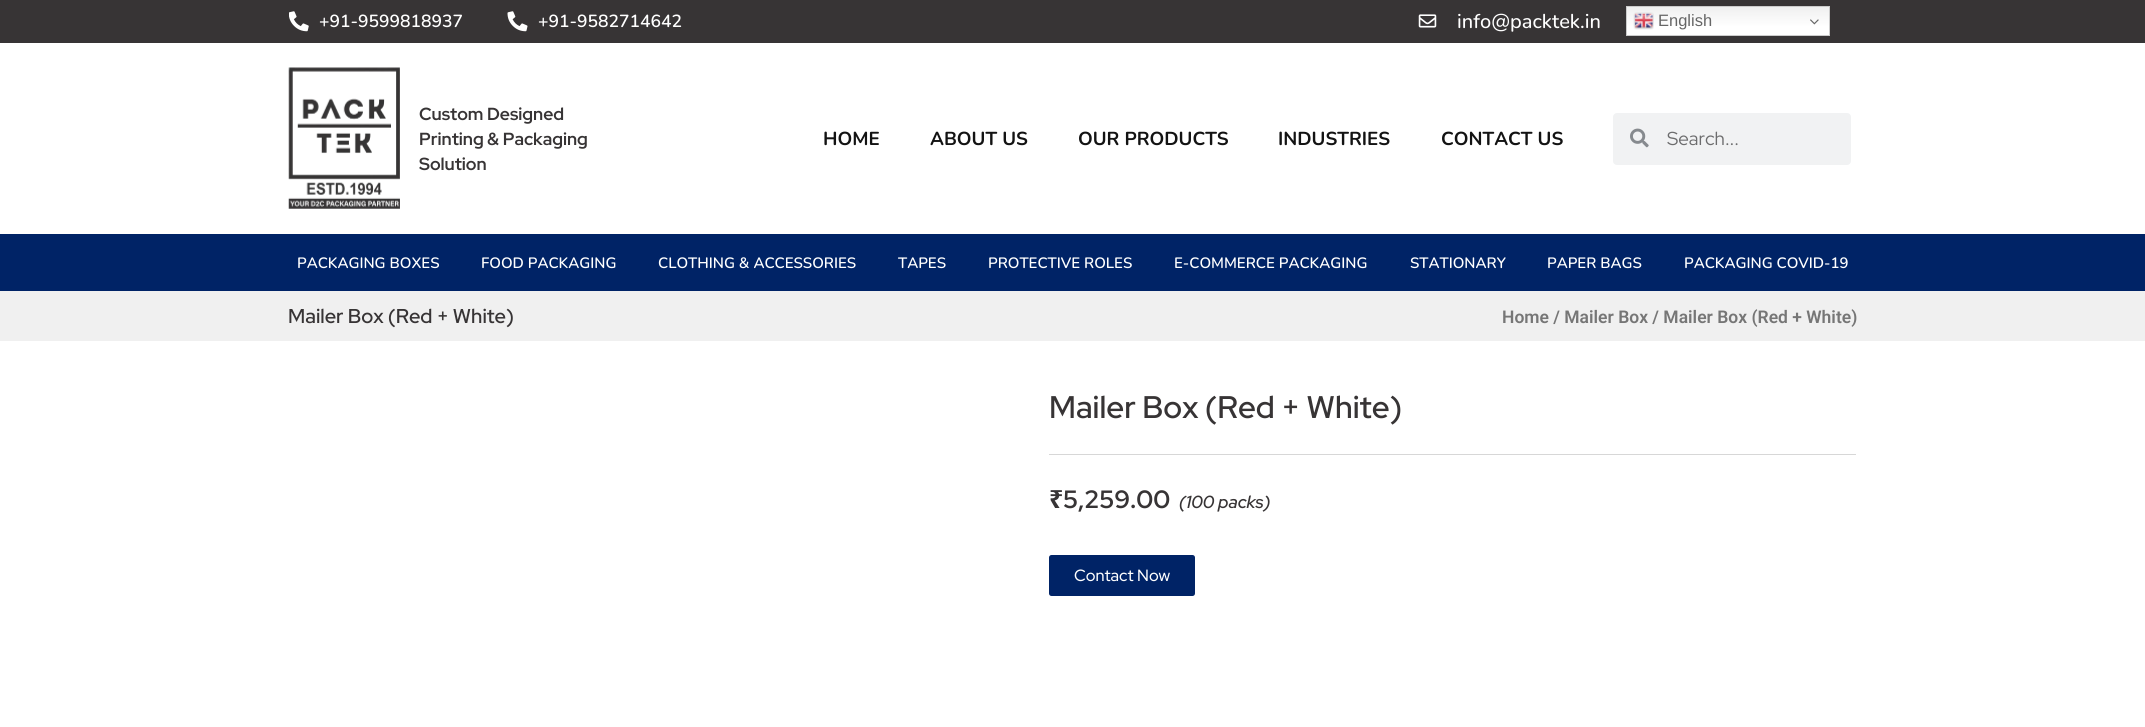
import math
import cairo


def round_path(ctx, x, y, w, h, r):
	ctx.new_sub_path()
	for i, (u, v) in enumerate([(x + w - r, y + h - r), (x + r, y + h - r), (x + r, y + r), (x + w - r, y + r)]):
		ctx.arc(u, v, r, i * math.pi / 2, (i + 1) * math.pi / 2)
	ctx.close_path()

def paste(ctx, path, x, y, w, h):
	ctx.save()
	ctx.set_source_surface(cairo.ImageSurface.create_from_png(path), x, y)
	ctx.rectangle(x, y, w, h)
	ctx.fill()
	ctx.restore()

def draw(ctx):
	ctx.set_source_rgb(1, 1, 1)
	ctx.paint()
	ctx.set_source_rgb(0.216, 0.204, 0.208)
	ctx.rectangle(0, 0, 2145, 43)
	ctx.fill()
	paste(ctx, 'media/1.png', 289, 11, 20, 21)
	ctx.select_font_face('Nunito SemiBold')
	ctx.set_font_size(17.5)
	ctx.set_source_rgb(1, 1, 1)
	ctx.move_to(319, 27)
	ctx.show_text('+91-9599818937')
	paste(ctx, 'media/2.png', 507, 11, 21, 21)
	ctx.move_to(538, 27)
	ctx.show_text('+91-9582714642')
	paste(ctx, 'media/3.png', 1418, 14, 19, 14)
	ctx.select_font_face('Nunito Medium')
	ctx.set_font_size(20)
	ctx.move_to(1457, 28)
	ctx.show_text('info@packtek.in')
	gradient = cairo.LinearGradient(1728, 6.2, 1728, 36)
	gradient.add_color_stop_rgba(0, 0.937, 0.937, 0.937, 1)
	gradient.add_color_stop_rgba(0.7, 1, 1, 1, 1)
	ctx.set_source(gradient)
	ctx.rectangle(1627, 7, 202, 28)
	ctx.fill()
	ctx.rectangle(1626.5, 6.5, 203, 29)
	ctx.set_source_rgb(0.8, 0.8, 0.8)
	ctx.set_line_width(1)
	ctx.stroke()
	paste(ctx, 'media/4.png', 1633, 12, 21, 18)
	ctx.select_font_face('Liberation Sans')
	ctx.set_font_size(16.5)
	ctx.set_source_rgb(0.4, 0.4, 0.4)
	ctx.move_to(1658, 26)
	ctx.show_text('English')
	paste(ctx, 'media/5.png', 1810, 19, 9, 6)
	paste(ctx, 'media/6.png', 288, 67, 112, 142)
	ctx.select_font_face('Red Hat Display', cairo.FONT_SLANT_NORMAL, cairo.FONT_WEIGHT_BOLD)
	ctx.set_font_size(17.5)
	ctx.set_source_rgb(0.216, 0.204, 0.208)
	for x, y, s in [
		(419, 120, 'Custom Designed'),
		(419, 145, 'Printing & Packaging'),
		(419, 170, 'Solution'),
	]:
		ctx.move_to(x, y)
		ctx.show_text(s)
	ctx.select_font_face('Nunito', cairo.FONT_SLANT_NORMAL, cairo.FONT_WEIGHT_BOLD)
	ctx.set_font_size(18.75)
	ctx.set_source_rgb(0.075, 0.075, 0.075)
	for x, y, s in [
		(823, 145, 'HOME'),
		(930, 145, 'ABOUT US'),
		(1078, 145, 'OUR PRODUCTS'),
		(1278, 145, 'INDUSTRIES'),
		(1441, 145, 'CONTACT US'),
	]:
		ctx.move_to(x, y)
		ctx.show_text(s)
	ctx.set_source_rgb(0.945, 0.949, 0.953)
	round_path(ctx, 1613, 113, 238, 52, 4)
	ctx.fill()
	paste(ctx, 'media/7.png', 1630, 128, 19, 20)
	ctx.select_font_face('Red Hat Display')
	ctx.set_source_rgb(0.424, 0.424, 0.427)
	ctx.move_to(1667, 145)
	ctx.show_text('Search...')
	ctx.set_source_rgb(0, 0.137, 0.4)
	ctx.rectangle(0, 234, 2145, 57)
	ctx.fill()
	ctx.select_font_face('Nunito SemiBold')
	ctx.set_font_size(15)
	ctx.set_source_rgb(1, 1, 1)
	for x, y, s in [
		(297, 268, 'PACKAGING BOXES'),
		(481, 268, 'FOOD PACKAGING'),
		(658, 268, 'CLOTHING & ACCESSORIES'),
		(898, 268, 'TAPES'),
		(988, 268, 'PROTECTIVE ROLES'),
		(1174, 268, 'E-COMMERCE PACKAGING'),
		(1410, 268, 'STATIONARY'),
		(1547, 268, 'PAPER BAGS'),
		(1684, 268, 'PACKAGING COVID-19'),
	]:
		ctx.move_to(x, y)
		ctx.show_text(s)
	ctx.set_source_rgb(0.941, 0.941, 0.941)
	ctx.rectangle(0, 291, 2145, 50)
	ctx.fill()
	ctx.select_font_face('Red Hat Display SemiBold')
	ctx.set_font_size(20)
	ctx.set_source_rgb(0.216, 0.204, 0.208)
	ctx.move_to(288, 323)
	ctx.show_text('Mailer Box (Red + White)')
	ctx.select_font_face('Roboto SemiBold')
	ctx.set_font_size(17.5)
	ctx.set_source_rgb(0.463, 0.463, 0.463)
	ctx.move_to(1502, 323)
	ctx.show_text('Home / Mailer Box / Mailer Box (Red + White)')
	ctx.select_font_face('Red Hat Display SemiBold')
	ctx.set_font_size(31.25)
	ctx.set_source_rgb(0.216, 0.204, 0.208)
	ctx.move_to(1049, 418)
	ctx.show_text('Mailer Box (Red + White)')
	ctx.set_source_rgb(0.843, 0.843, 0.843)
	ctx.rectangle(1049, 454, 807, 1)
	ctx.fill()
	ctx.select_font_face('Noto Sans', cairo.FONT_SLANT_NORMAL, cairo.FONT_WEIGHT_BOLD)
	ctx.set_font_size(25)
	ctx.set_source_rgb(0.216, 0.204, 0.208)
	ctx.move_to(1049, 508)
	ctx.show_text('₹')
	ctx.select_font_face('Red Hat Display', cairo.FONT_SLANT_NORMAL, cairo.FONT_WEIGHT_BOLD)
	ctx.move_to(1063, 508)
	ctx.show_text('5,259.00')
	ctx.select_font_face('Red Hat Display SemiBold', cairo.FONT_SLANT_ITALIC)
	ctx.set_font_size(17.5)
	ctx.move_to(1179, 508)
	ctx.show_text('(100 packs)')
	ctx.set_source_rgb(0, 0.137, 0.4)
	round_path(ctx, 1049, 555, 146, 41, 2.5)
	ctx.fill()
	ctx.select_font_face('Red Hat Display Medium')
	ctx.set_font_size(16.25)
	ctx.set_source_rgb(1, 1, 1)
	ctx.move_to(1074, 581)
	ctx.show_text('Contact Now')


surface = cairo.ImageSurface(cairo.FORMAT_RGB24, 2145, 727)
ctx = cairo.Context(surface)
options = cairo.FontOptions()
options.set_hint_metrics(cairo.HINT_METRICS_OFF)
options.set_hint_style(cairo.HINT_STYLE_NONE)
ctx.set_font_options(options)
ctx.set_miter_limit(4)
draw(ctx)
surface.write_to_png('image.png')
